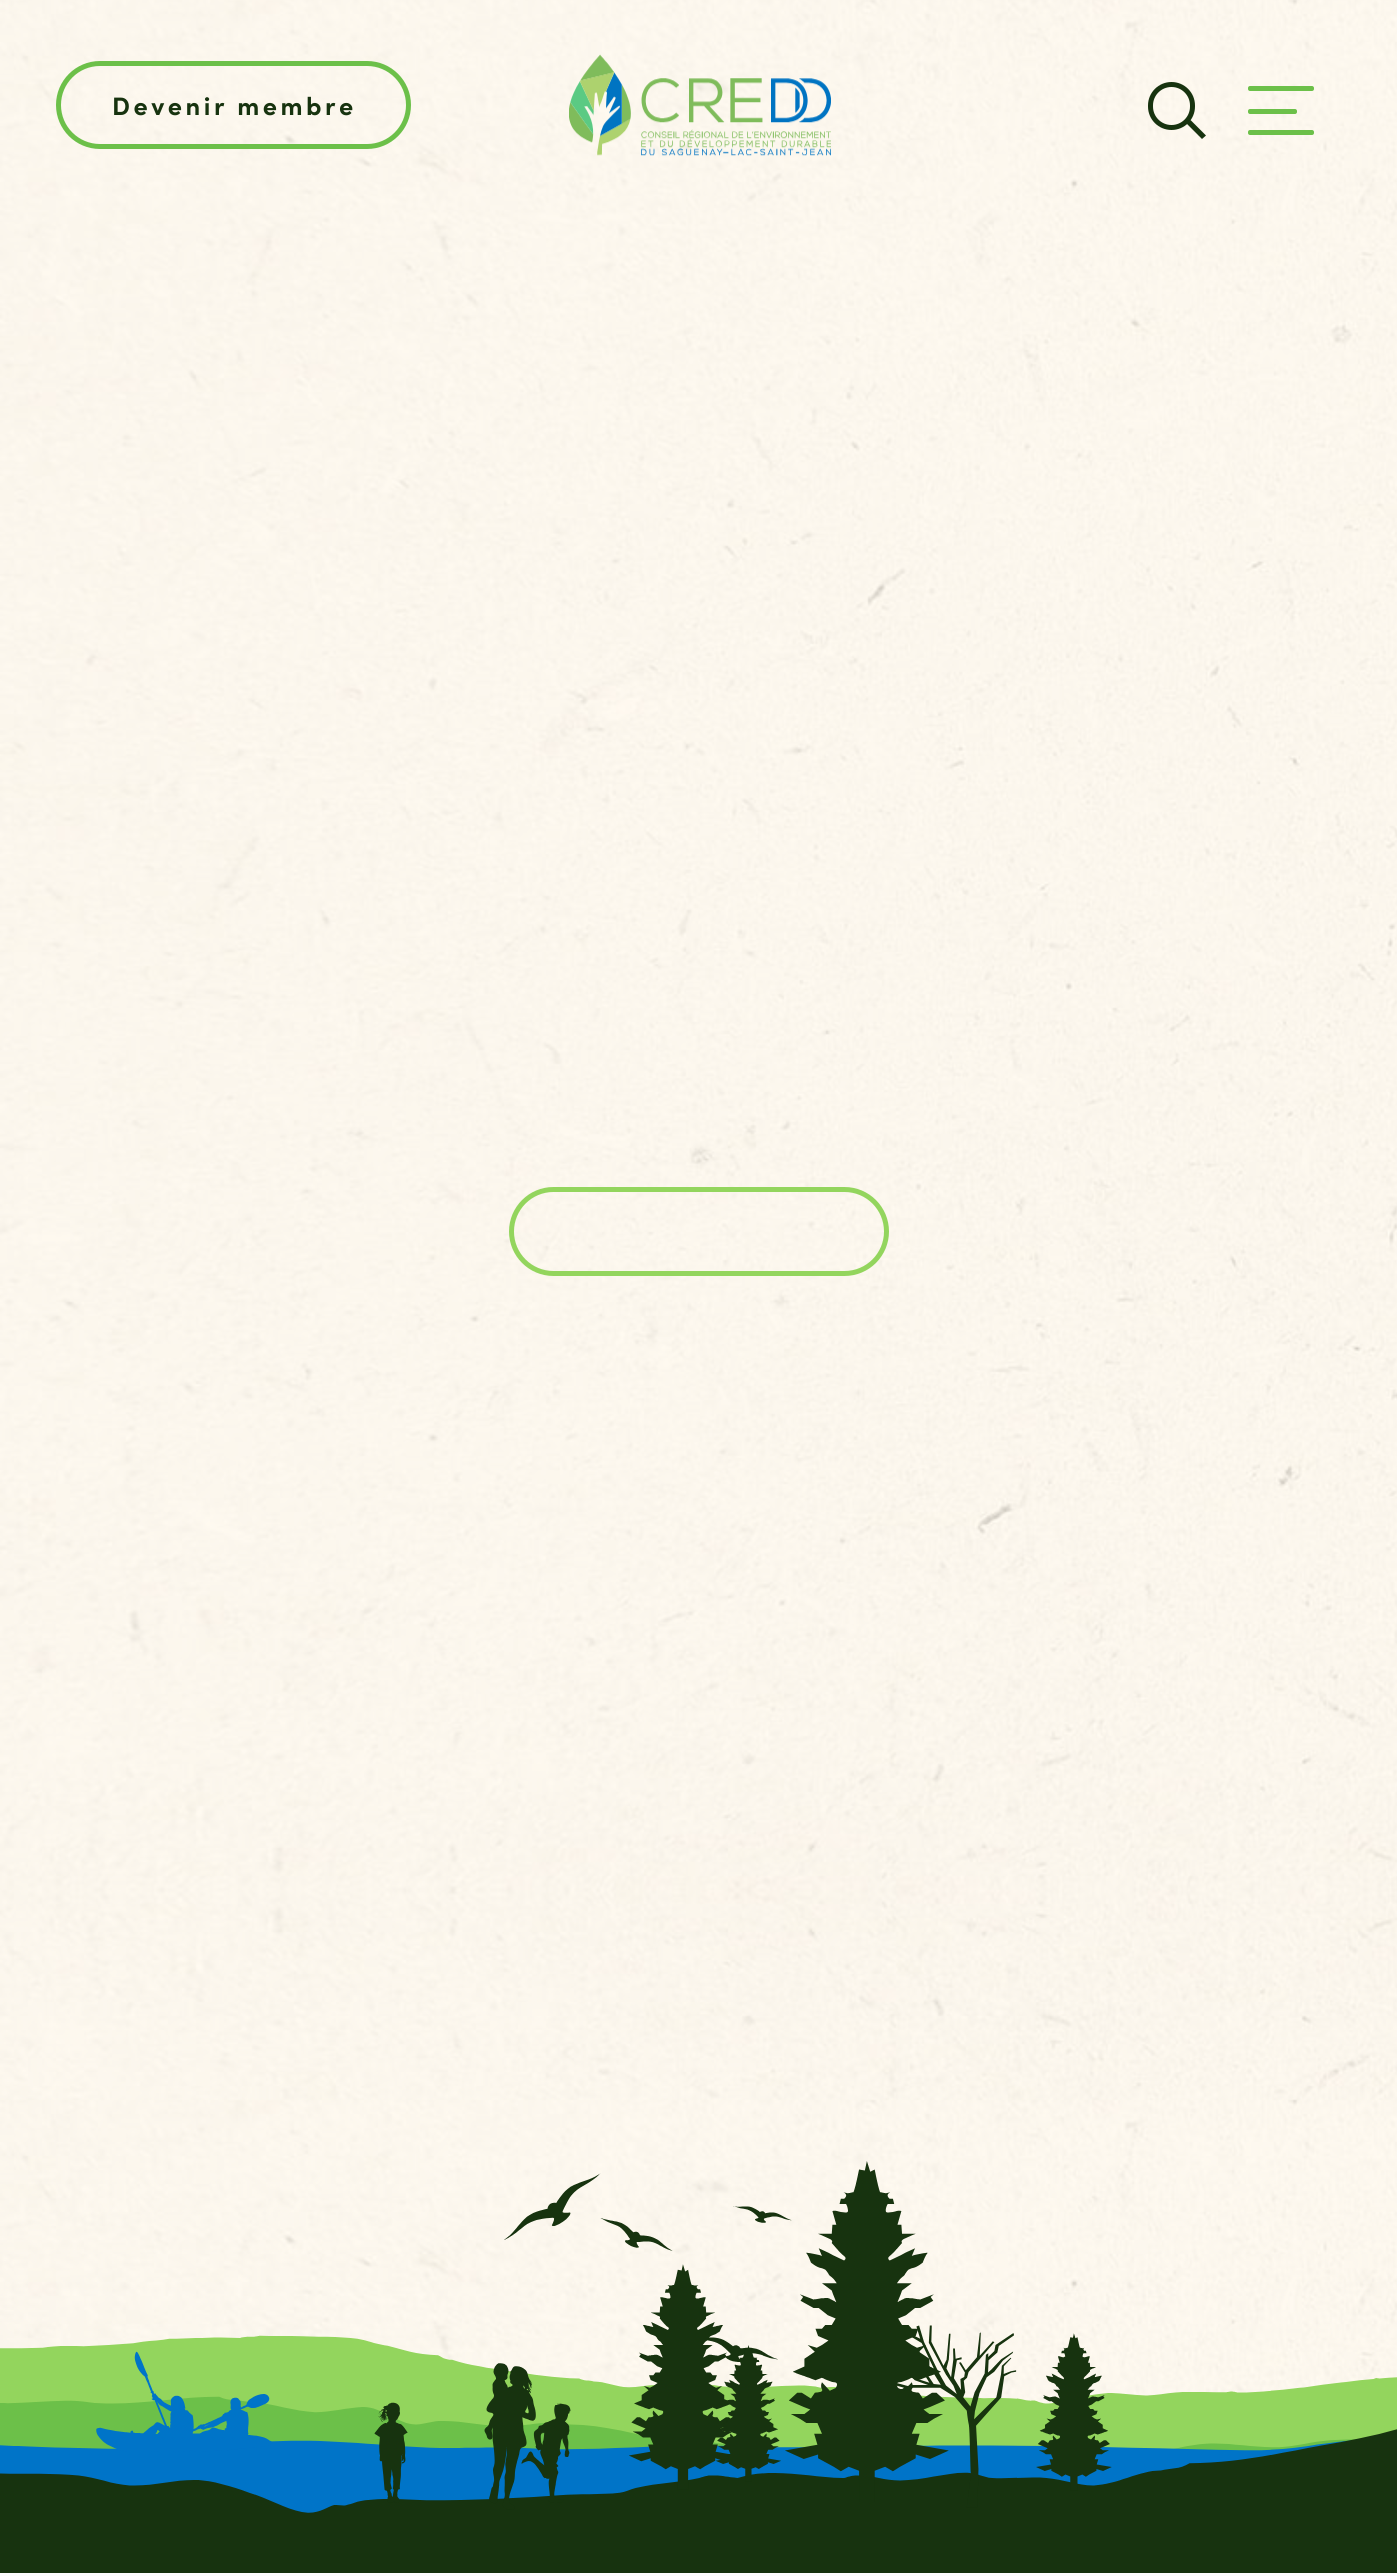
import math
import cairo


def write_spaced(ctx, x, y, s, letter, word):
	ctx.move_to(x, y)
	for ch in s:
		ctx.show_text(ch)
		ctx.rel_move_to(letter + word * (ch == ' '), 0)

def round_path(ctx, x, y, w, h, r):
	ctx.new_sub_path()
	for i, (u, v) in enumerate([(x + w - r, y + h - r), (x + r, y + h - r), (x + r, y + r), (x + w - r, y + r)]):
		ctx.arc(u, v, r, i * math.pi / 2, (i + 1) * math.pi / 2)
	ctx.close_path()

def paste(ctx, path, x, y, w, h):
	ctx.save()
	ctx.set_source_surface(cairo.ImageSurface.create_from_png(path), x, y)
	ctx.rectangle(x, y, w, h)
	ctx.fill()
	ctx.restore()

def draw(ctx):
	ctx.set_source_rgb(1, 0.988, 0.953)
	ctx.paint()
	paste(ctx, 'media/1.png', 0, 0, 1397, 2404)
	round_path(ctx, 58.5, 63.5, 350, 83, 41.5)
	ctx.set_source_rgb(0.424, 0.753, 0.286)
	ctx.set_line_width(5)
	ctx.stroke()
	ctx.select_font_face('Sofia', cairo.FONT_SLANT_NORMAL, cairo.FONT_WEIGHT_BOLD)
	ctx.set_font_size(25.25)
	ctx.set_source_rgb(0.09, 0.2, 0.059)
	write_spaced(ctx, 112, 115, 'Devenir membre', 3.5, 0)
	paste(ctx, 'media/2.png', 569, 54, 262, 102)
	ctx.new_path()
	ctx.move_to(1186.5, 123.5)
	ctx.line_to(1190.5, 120)
	ctx.line_to(1206, 135.5)
	ctx.line_to(1202, 139)
	ctx.close_path()
	ctx.fill()
	round_path(ctx, 1150.5, 84.5, 42, 43, 21)
	ctx.stroke()
	ctx.set_source_rgb(0.424, 0.753, 0.286)
	round_path(ctx, 1248, 86, 66, 5, 2)
	ctx.fill()
	round_path(ctx, 1248, 109, 49, 5, 2)
	ctx.fill()
	round_path(ctx, 1248, 130, 66, 5, 2)
	ctx.fill()
	round_path(ctx, 511.5, 1189.5, 375, 84, 42)
	ctx.set_source_rgb(0.576, 0.835, 0.365)
	ctx.stroke()
	paste(ctx, 'media/3.png', 0, 2161, 1397, 412)


surface = cairo.ImageSurface(cairo.FORMAT_RGB24, 1397, 2573)
ctx = cairo.Context(surface)
options = cairo.FontOptions()
options.set_hint_metrics(cairo.HINT_METRICS_OFF)
options.set_hint_style(cairo.HINT_STYLE_NONE)
ctx.set_font_options(options)
ctx.set_miter_limit(4)
draw(ctx)
surface.write_to_png('image.png')
